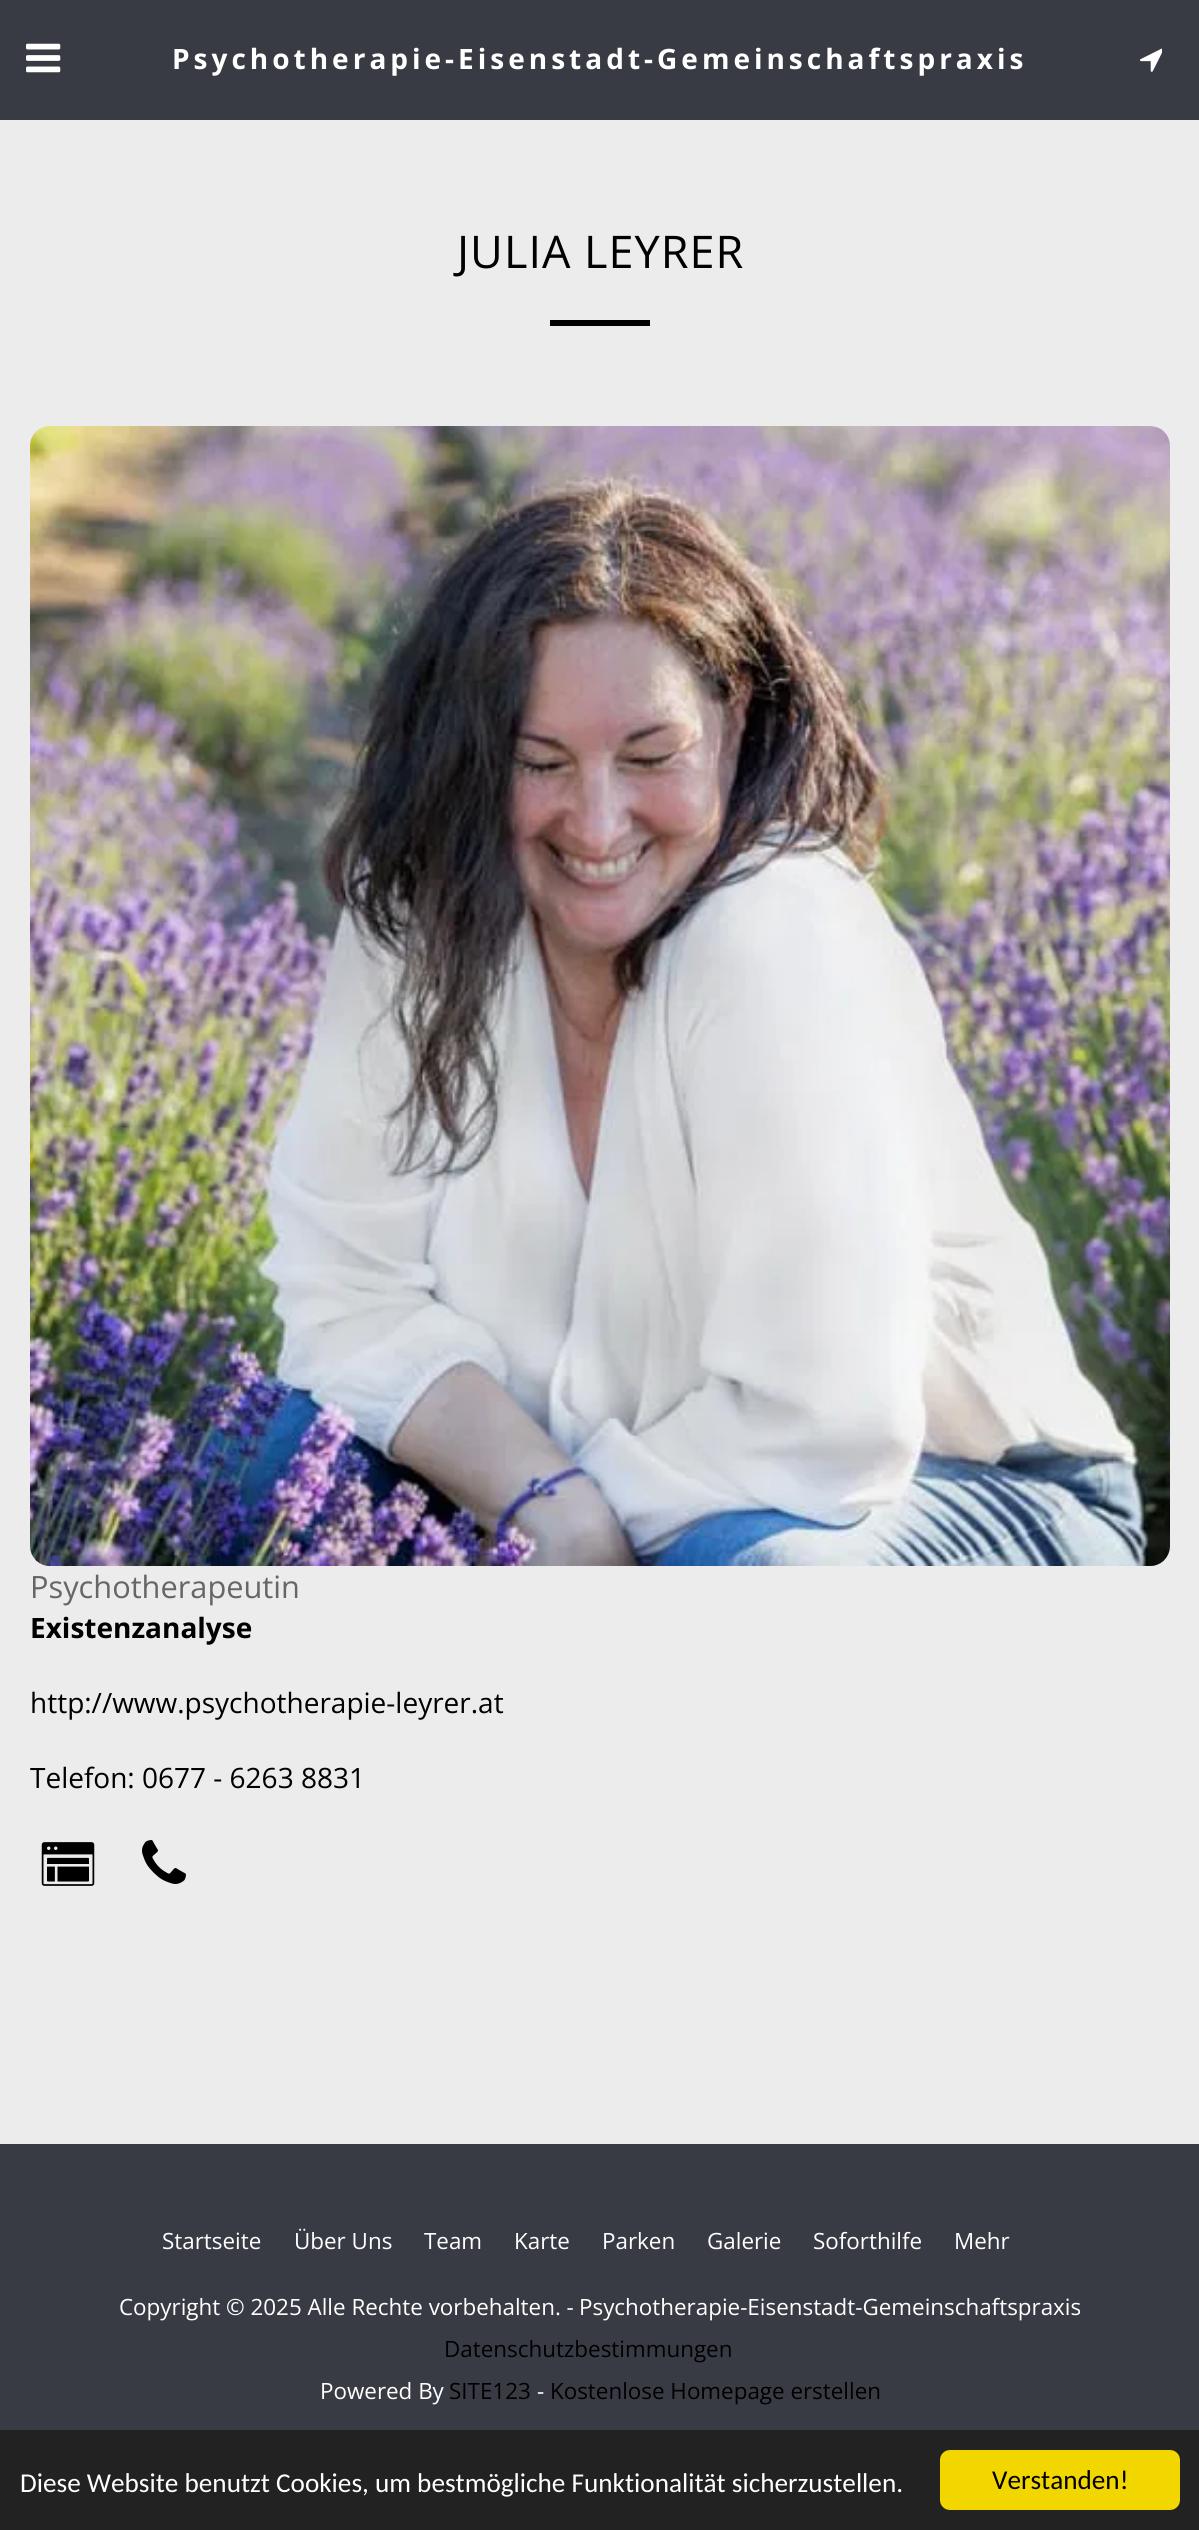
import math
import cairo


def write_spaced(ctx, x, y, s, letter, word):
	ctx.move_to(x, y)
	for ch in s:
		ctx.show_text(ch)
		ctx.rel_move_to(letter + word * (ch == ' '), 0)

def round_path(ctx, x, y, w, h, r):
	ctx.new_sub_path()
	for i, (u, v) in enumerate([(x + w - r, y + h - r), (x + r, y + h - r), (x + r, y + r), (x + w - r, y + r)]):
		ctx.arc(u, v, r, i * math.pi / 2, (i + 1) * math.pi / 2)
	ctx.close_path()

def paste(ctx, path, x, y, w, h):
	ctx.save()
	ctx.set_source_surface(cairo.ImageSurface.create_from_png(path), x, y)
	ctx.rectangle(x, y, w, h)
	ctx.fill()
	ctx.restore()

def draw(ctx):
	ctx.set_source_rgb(0.922, 0.922, 0.922)
	ctx.paint()
	ctx.set_source_rgb(0.224, 0.231, 0.267)
	ctx.rectangle(0, 0, 1199, 120)
	ctx.fill()
	paste(ctx, 'media/1.png', 26, 43, 35, 30)
	ctx.select_font_face('Open Sans', cairo.FONT_SLANT_NORMAL, cairo.FONT_WEIGHT_BOLD)
	ctx.set_font_size(28)
	ctx.set_source_rgb(1, 1, 1)
	write_spaced(ctx, 172, 69, 'Psychotherapie-Eisenstadt-Gemeinschaftspraxis', 4, 0)
	paste(ctx, 'media/2.png', 1140, 48, 22, 24)
	ctx.select_font_face('Open Sans')
	ctx.set_font_size(45)
	ctx.set_source_rgb(0, 0, 0)
	write_spaced(ctx, 457, 268, 'JULIA LEYRER', 1, 0)
	ctx.rectangle(550, 320, 100, 6)
	ctx.fill()
	paste(ctx, 'media/3.png', 30, 426, 1140, 1140)
	ctx.set_font_size(30.75)
	ctx.set_source_rgb(0.4, 0.4, 0.4)
	ctx.move_to(30, 1598)
	ctx.show_text('Psychotherapeutin')
	ctx.select_font_face('Open Sans', cairo.FONT_SLANT_NORMAL, cairo.FONT_WEIGHT_BOLD)
	ctx.set_font_size(28)
	ctx.set_source_rgb(0, 0, 0)
	ctx.move_to(30, 1638)
	ctx.show_text('Existenzanalyse')
	ctx.select_font_face('Open Sans')
	ctx.move_to(30, 1713)
	ctx.show_text('http://www.psychotherapie-leyrer.at')
	ctx.move_to(30, 1788)
	ctx.show_text('Telefon: 0677 - 6263 8831')
	paste(ctx, 'media/4.png', 41, 1842, 54, 44)
	paste(ctx, 'media/5.png', 142, 1840, 44, 44)
	ctx.set_source_rgb(0.224, 0.231, 0.267)
	ctx.rectangle(0, 2144, 1199, 286)
	ctx.fill()
	ctx.set_font_size(22.4)
	ctx.set_source_rgb(1, 1, 1)
	for x, y, s in [
		(162, 2249, 'Startseite'),
		(294, 2249, 'Über Uns'),
		(424, 2249, 'Team'),
		(514, 2249, 'Karte'),
		(602, 2249, 'Parken'),
		(707, 2249, 'Galerie'),
		(813, 2249, 'Soforthilfe'),
		(954, 2249, 'Mehr'),
		(119, 2315, 'Copyright © 2025 Alle Rechte vorbehalten. -'),
		(579, 2315, 'Psychotherapie-Eisenstadt-Gemeinschaftspraxis'),
	]:
		ctx.move_to(x, y)
		ctx.show_text(s)
	ctx.set_source_rgb(0, 0, 0)
	ctx.move_to(444, 2357)
	ctx.show_text('Datenschutzbestimmungen')
	ctx.set_source_rgb(1, 1, 1)
	ctx.move_to(320, 2399)
	ctx.show_text('Powered By')
	ctx.set_source_rgb(0, 0, 0)
	ctx.move_to(449, 2399)
	ctx.show_text('SITE123')
	ctx.set_source_rgb(1, 1, 1)
	ctx.move_to(537, 2399)
	ctx.show_text('-')
	ctx.set_source_rgb(0, 0, 0)
	ctx.move_to(550, 2399)
	ctx.show_text('Kostenlose Homepage erstellen')
	ctx.set_source_rgb(0.133, 0.133, 0.133)
	ctx.rectangle(0, 2430, 1199, 100)
	ctx.fill()
	ctx.select_font_face('Carlito')
	ctx.set_font_size(27.2)
	ctx.set_source_rgb(1, 1, 1)
	ctx.move_to(20, 2492)
	ctx.show_text('Diese Website benutzt Cookies, um bestmögliche Funktionalität sicherzustellen.')
	ctx.set_source_rgb(0.945, 0.839, 0)
	round_path(ctx, 940, 2450, 240, 60, 10)
	ctx.fill()
	ctx.set_source_rgb(0, 0, 0)
	ctx.move_to(992, 2489)
	ctx.show_text('Verstanden!')


surface = cairo.ImageSurface(cairo.FORMAT_RGB24, 1199, 2530)
ctx = cairo.Context(surface)
options = cairo.FontOptions()
options.set_hint_metrics(cairo.HINT_METRICS_OFF)
options.set_hint_style(cairo.HINT_STYLE_NONE)
ctx.set_font_options(options)
ctx.set_miter_limit(4)
draw(ctx)
surface.write_to_png('image.png')
